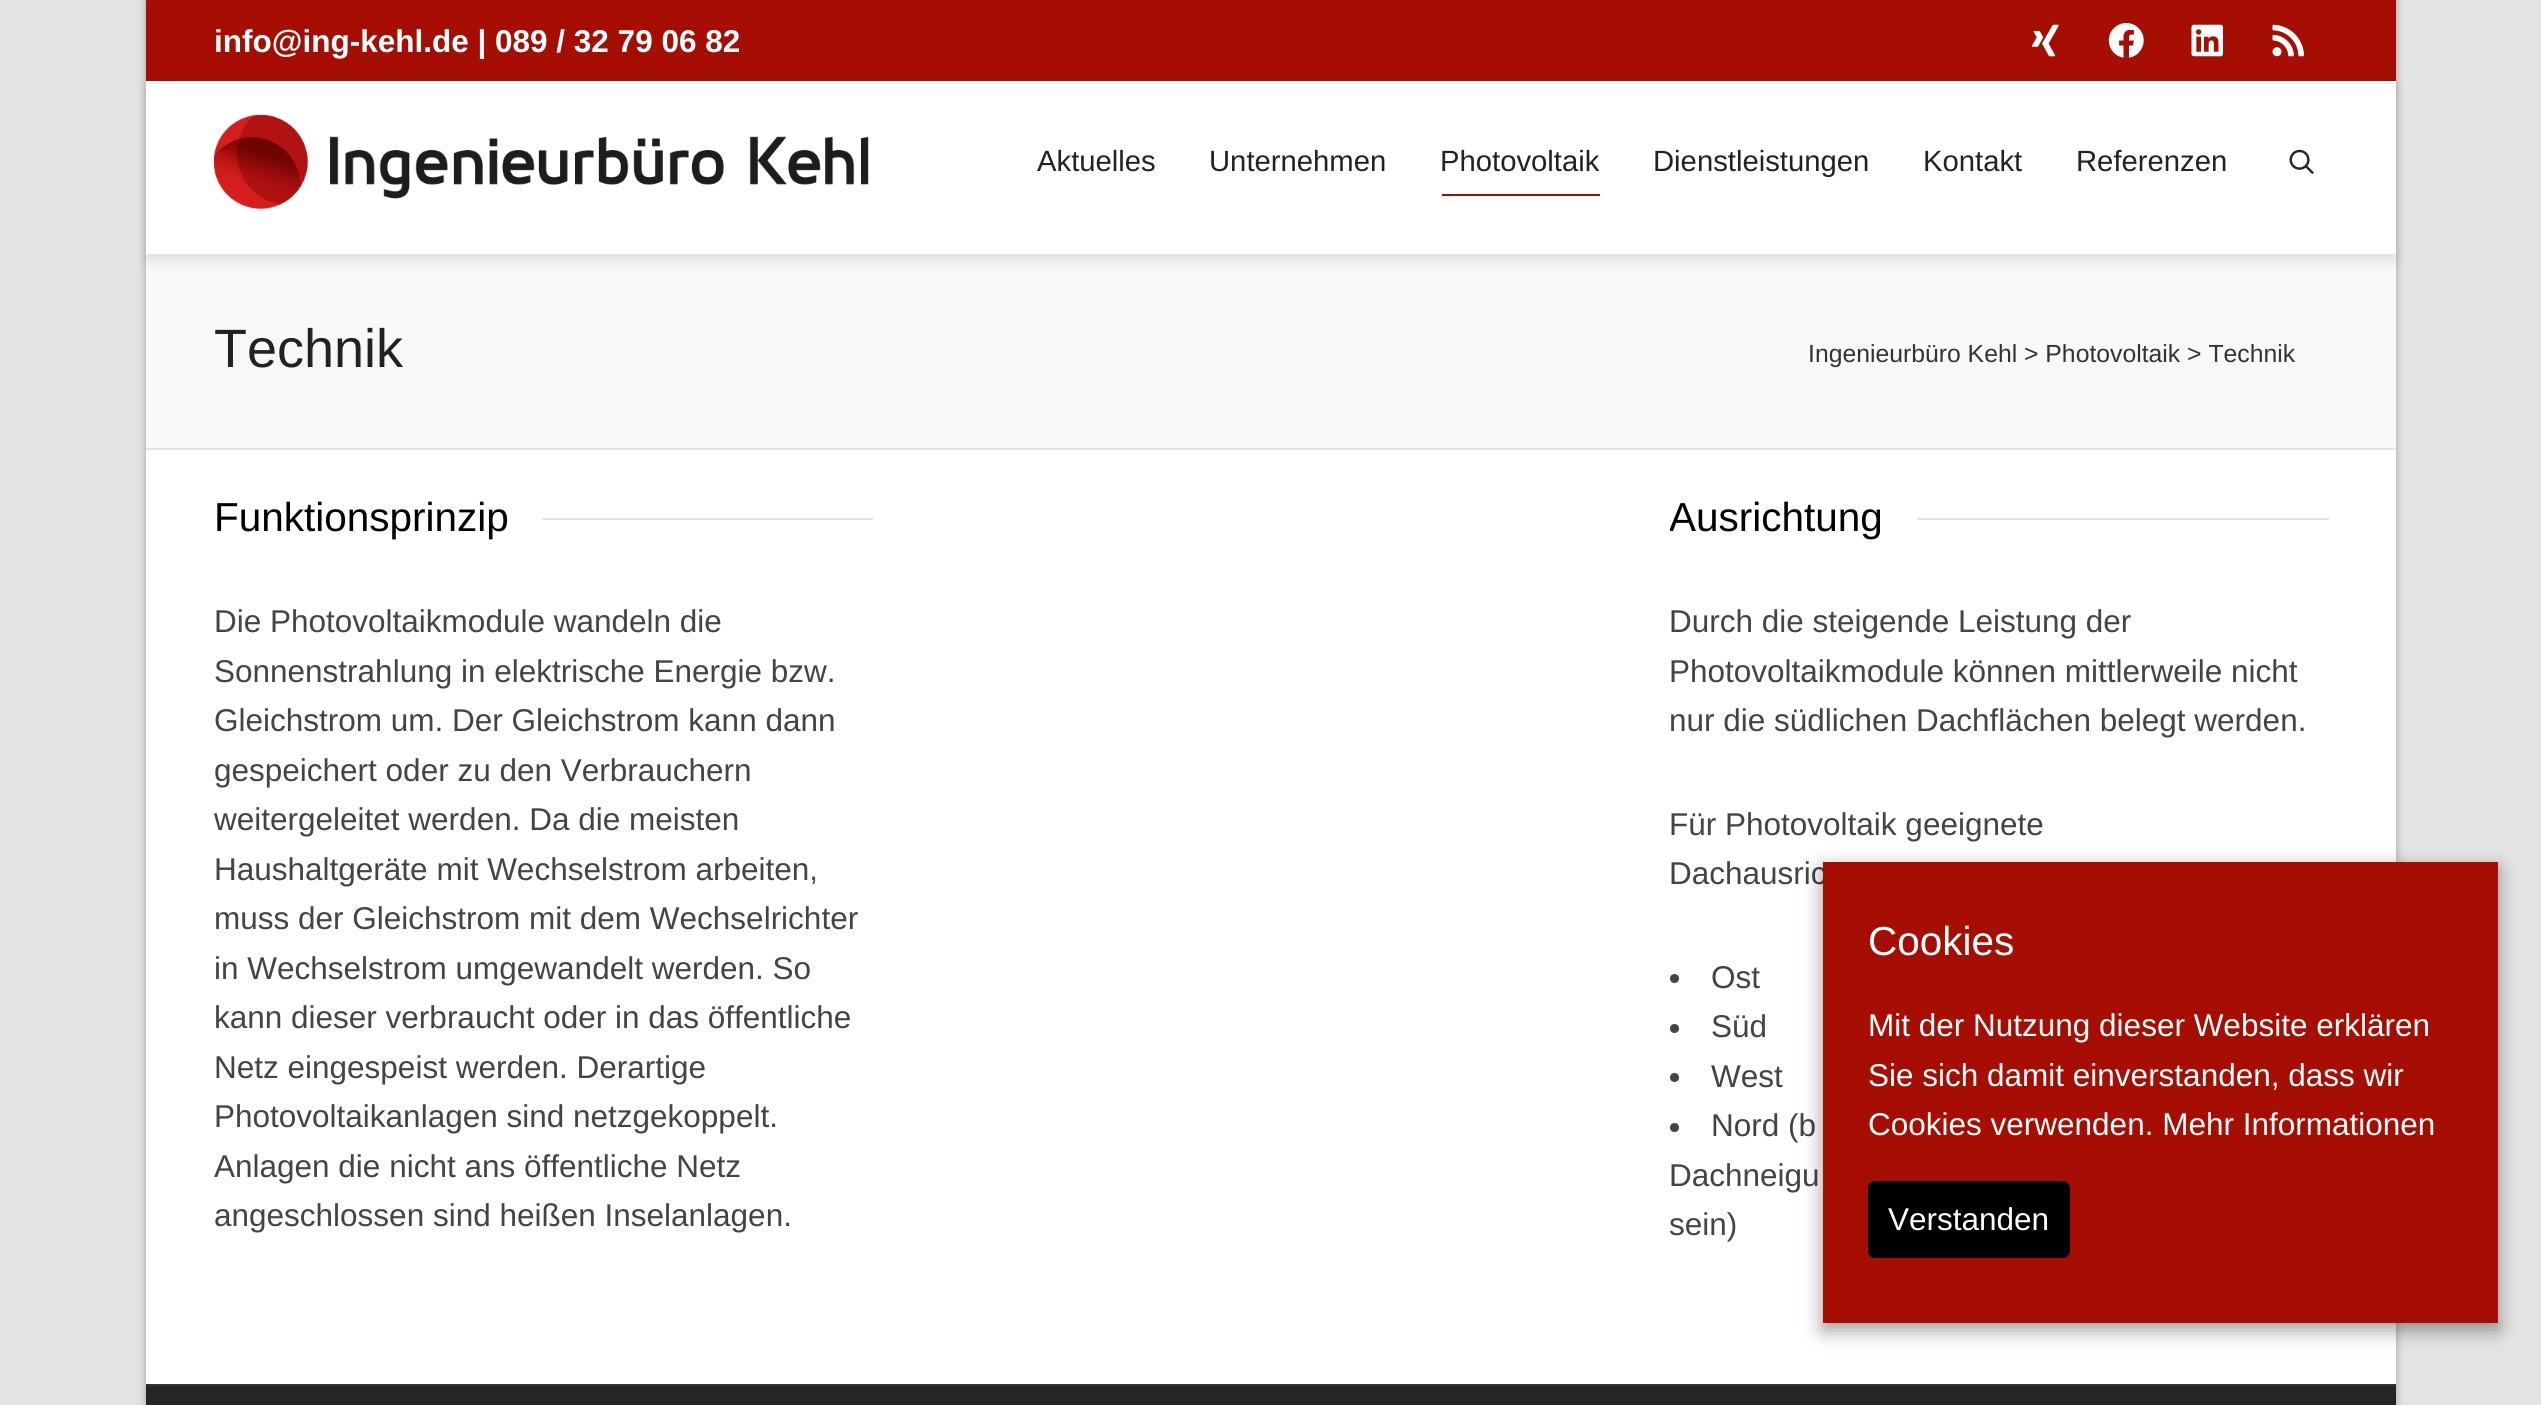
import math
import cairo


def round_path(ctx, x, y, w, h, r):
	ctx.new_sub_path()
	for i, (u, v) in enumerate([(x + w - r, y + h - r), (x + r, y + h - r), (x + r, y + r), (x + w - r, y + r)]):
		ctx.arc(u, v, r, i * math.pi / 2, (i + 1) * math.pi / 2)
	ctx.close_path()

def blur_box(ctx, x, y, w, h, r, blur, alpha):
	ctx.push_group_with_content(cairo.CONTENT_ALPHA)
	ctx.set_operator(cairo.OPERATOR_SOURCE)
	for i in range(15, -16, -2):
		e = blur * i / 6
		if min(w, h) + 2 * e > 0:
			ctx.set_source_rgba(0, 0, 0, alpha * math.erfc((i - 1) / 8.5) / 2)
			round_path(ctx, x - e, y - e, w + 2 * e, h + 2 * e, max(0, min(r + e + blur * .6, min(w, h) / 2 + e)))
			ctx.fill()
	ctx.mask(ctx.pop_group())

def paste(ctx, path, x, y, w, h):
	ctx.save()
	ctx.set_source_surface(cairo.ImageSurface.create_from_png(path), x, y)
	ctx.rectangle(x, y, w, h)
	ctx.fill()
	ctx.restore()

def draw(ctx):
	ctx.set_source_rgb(0.894, 0.894, 0.894)
	ctx.paint()
	ctx.set_source_rgb(0, 0, 0)
	blur_box(ctx, 146, 0, 2250, 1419, 0, 4.5, 0.3)
	ctx.set_source_rgb(1, 1, 1)
	ctx.rectangle(146, 450, 2250, 934)
	ctx.fill()
	ctx.set_source_rgb(0.969, 0.969, 0.969)
	ctx.rectangle(146, 254, 2250, 194)
	ctx.fill()
	ctx.set_source_rgb(0, 0, 0)
	blur_box(ctx, 146, 88, 2250, 173, 0, 5.5, 0.1)
	ctx.set_source_rgb(0.651, 0.055, 0.012)
	ctx.rectangle(146, 0, 2250, 81)
	ctx.fill()
	ctx.select_font_face('Liberation Sans', cairo.FONT_SLANT_NORMAL, cairo.FONT_WEIGHT_BOLD)
	ctx.set_font_size(31.5)
	ctx.set_source_rgb(1, 1, 1)
	ctx.move_to(214, 52)
	ctx.show_text('info@ing-kehl.de | 089 / 32 79 06 82')
	paste(ctx, 'media/1.png', 2031, 24, 28, 33)
	paste(ctx, 'media/2.png', 2108, 23, 36, 35)
	paste(ctx, 'media/3.png', 2191, 24, 32, 33)
	paste(ctx, 'media/4.png', 2272, 24, 32, 33)
	ctx.rectangle(146, 81, 2250, 173)
	ctx.fill()
	paste(ctx, 'media/5.png', 213, 114, 656, 96)
	ctx.select_font_face('Liberation Sans')
	ctx.set_font_size(29.25)
	ctx.set_source_rgb(0.133, 0.133, 0.133)
	for x, y, s in [
		(1037, 171, 'Aktuelles'),
		(1209, 171, 'Unternehmen'),
		(1440, 171, 'Photovoltaik'),
	]:
		ctx.move_to(x, y)
		ctx.show_text(s)
	ctx.set_source_rgb(0.651, 0.055, 0.012)
	ctx.rectangle(1442, 194, 158, 2)
	ctx.fill()
	ctx.set_source_rgb(0.133, 0.133, 0.133)
	for x, y, s in [
		(1653, 171, 'Dienstleistungen'),
		(1923, 171, 'Kontakt'),
		(2076, 171, 'Referenzen'),
	]:
		ctx.move_to(x, y)
		ctx.show_text(s)
	paste(ctx, 'media/6.png', 2289, 149, 25, 26)
	ctx.set_source_rgb(0.894, 0.894, 0.894)
	ctx.rectangle(146, 448, 2250, 2)
	ctx.fill()
	ctx.set_font_size(54)
	ctx.set_source_rgb(0.133, 0.133, 0.133)
	ctx.move_to(214, 367)
	ctx.show_text('Technik')
	ctx.set_font_size(24.75)
	ctx.set_source_rgb(0.2, 0.2, 0.2)
	ctx.move_to(1808, 362)
	ctx.show_text('Ingenieurbüro Kehl > Photovoltaik > Technik')
	ctx.set_font_size(40.5)
	ctx.set_source_rgb(0, 0, 0)
	ctx.move_to(214, 531)
	ctx.show_text('Funktionsprinzip')
	ctx.set_source_rgb(0.894, 0.894, 0.894)
	ctx.rectangle(542, 518, 331, 2)
	ctx.fill()
	ctx.set_font_size(31.5)
	ctx.set_source_rgb(0.267, 0.267, 0.267)
	for x, y, s in [
		(214, 632, 'Die Photovoltaikmodule wandeln die'),
		(214, 682, 'Sonnenstrahlung in elektrische Energie bzw.'),
		(214, 731, 'Gleichstrom um. Der Gleichstrom kann dann'),
		(214, 781, 'gespeichert oder zu den Verbrauchern'),
		(214, 830, 'weitergeleitet werden. Da die meisten'),
		(214, 880, 'Haushaltgeräte mit Wechselstrom arbeiten,'),
		(214, 929, 'muss der Gleichstrom mit dem Wechselrichter'),
		(214, 979, 'in Wechselstrom umgewandelt werden. So'),
		(214, 1028, 'kann dieser verbraucht oder in das öffentliche'),
		(214, 1078, 'Netz eingespeist werden. Derartige'),
		(214, 1127, 'Photovoltaikanlagen sind netzgekoppelt.'),
		(214, 1177, 'Anlagen die nicht ans öffentliche Netz'),
		(214, 1226, 'angeschlossen sind heißen Inselanlagen.'),
	]:
		ctx.move_to(x, y)
		ctx.show_text(s)
	ctx.save()
	ctx.rectangle(1670, 495, 659, 45)
	ctx.clip()
	ctx.set_font_size(40.5)
	ctx.set_source_rgb(0, 0, 0)
	ctx.move_to(1669, 531)
	ctx.show_text('Ausrichtung')
	ctx.restore()
	ctx.set_source_rgb(0.894, 0.894, 0.894)
	ctx.rectangle(1917, 518, 412, 2)
	ctx.fill()
	ctx.set_source_rgb(0.267, 0.267, 0.267)
	for x, y, s in [
		(1669, 632, 'Durch die steigende Leistung der'),
		(1669, 682, 'Photovoltaikmodule können mittlerweile nicht'),
		(1669, 731, 'nur die südlichen Dachflächen belegt werden.'),
		(1669, 835, 'Für Photovoltaik geeignete'),
		(1669, 884, 'Dachausric'),
	]:
		ctx.move_to(x, y)
		ctx.show_text(s)
	ctx.new_path()
	ctx.arc(1674.5, 978.5, 4.5, 0, 2 * math.pi)
	ctx.fill()
	ctx.move_to(1711, 988)
	ctx.show_text('Ost')
	ctx.new_path()
	ctx.arc(1674.5, 1028.5, 4.5, 0, 2 * math.pi)
	ctx.fill()
	ctx.move_to(1711, 1037)
	ctx.show_text('Süd')
	ctx.new_path()
	ctx.arc(1674.5, 1077.5, 4.5, 0, 2 * math.pi)
	ctx.fill()
	ctx.move_to(1711, 1087)
	ctx.show_text('West')
	ctx.new_path()
	ctx.arc(1674.5, 1127.5, 4.5, 0, 2 * math.pi)
	ctx.fill()
	for x, y, s in [
		(1711, 1136, 'Nord (b'),
		(1669, 1186, 'Dachneigu'),
		(1669, 1235, 'sein)'),
	]:
		ctx.move_to(x, y)
		ctx.show_text(s)
	ctx.set_source_rgb(0.145, 0.145, 0.145)
	ctx.rectangle(146, 1386, 2250, 19)
	ctx.fill()
	ctx.set_source_rgb(0.2, 0.2, 0.2)
	ctx.rectangle(146, 1384, 2250, 2)
	ctx.fill()
	ctx.set_source_rgb(0, 0, 0)
	blur_box(ctx, 1823, 869, 675, 461, 0, 10, 0.4)
	ctx.set_source_rgb(0.651, 0.055, 0.012)
	ctx.rectangle(1823, 862, 675, 461)
	ctx.fill()
	ctx.set_font_size(40.5)
	ctx.set_source_rgb(1, 1, 1)
	ctx.move_to(1868, 955)
	ctx.show_text('Cookies')
	ctx.set_font_size(31.5)
	for x, y, s in [
		(1868, 1036, 'Mit der Nutzung dieser Website erklären'),
		(1868, 1086, 'Sie sich damit einverstanden, dass wir'),
		(1868, 1135, 'Cookies verwenden. Mehr Informationen'),
	]:
		ctx.move_to(x, y)
		ctx.show_text(s)
	ctx.set_source_rgb(0, 0, 0)
	round_path(ctx, 1868, 1181, 202, 77, 7)
	ctx.fill()
	ctx.set_source_rgb(1, 1, 1)
	ctx.move_to(1888, 1230)
	ctx.show_text('Verstanden')


surface = cairo.ImageSurface(cairo.FORMAT_RGB24, 2541, 1405)
ctx = cairo.Context(surface)
options = cairo.FontOptions()
options.set_hint_metrics(cairo.HINT_METRICS_OFF)
options.set_hint_style(cairo.HINT_STYLE_NONE)
ctx.set_font_options(options)
ctx.set_miter_limit(4)
draw(ctx)
surface.write_to_png('image.png')
